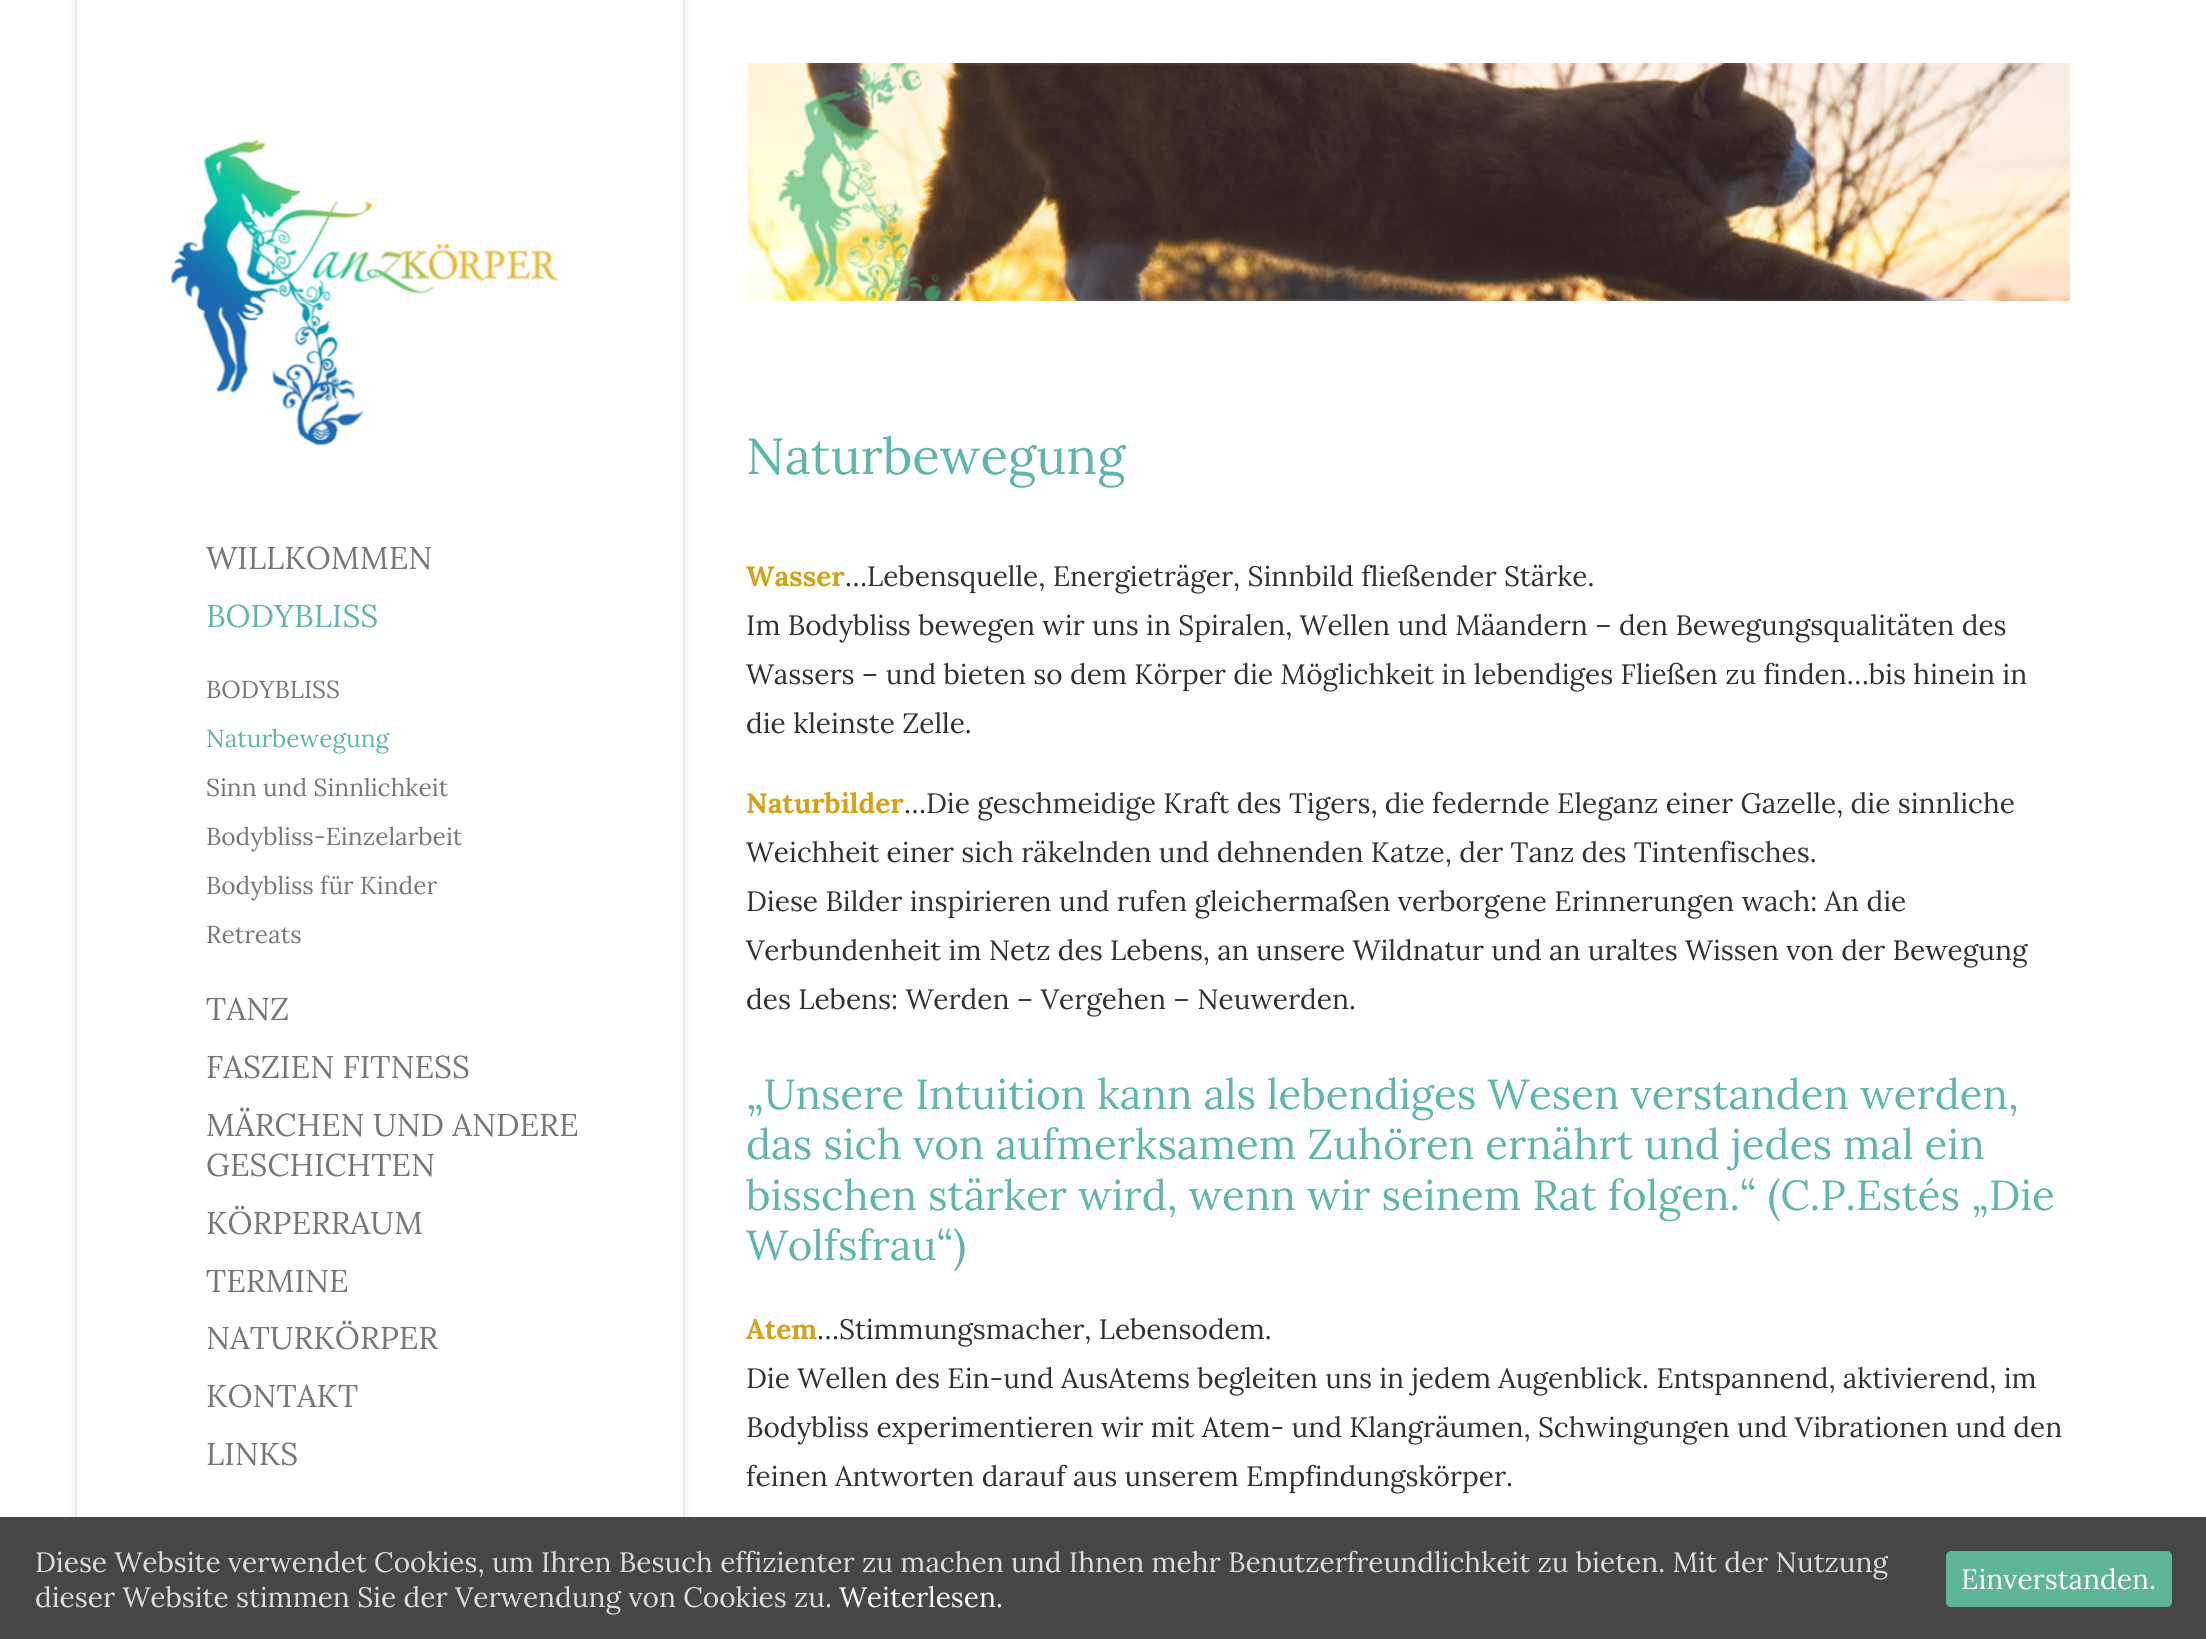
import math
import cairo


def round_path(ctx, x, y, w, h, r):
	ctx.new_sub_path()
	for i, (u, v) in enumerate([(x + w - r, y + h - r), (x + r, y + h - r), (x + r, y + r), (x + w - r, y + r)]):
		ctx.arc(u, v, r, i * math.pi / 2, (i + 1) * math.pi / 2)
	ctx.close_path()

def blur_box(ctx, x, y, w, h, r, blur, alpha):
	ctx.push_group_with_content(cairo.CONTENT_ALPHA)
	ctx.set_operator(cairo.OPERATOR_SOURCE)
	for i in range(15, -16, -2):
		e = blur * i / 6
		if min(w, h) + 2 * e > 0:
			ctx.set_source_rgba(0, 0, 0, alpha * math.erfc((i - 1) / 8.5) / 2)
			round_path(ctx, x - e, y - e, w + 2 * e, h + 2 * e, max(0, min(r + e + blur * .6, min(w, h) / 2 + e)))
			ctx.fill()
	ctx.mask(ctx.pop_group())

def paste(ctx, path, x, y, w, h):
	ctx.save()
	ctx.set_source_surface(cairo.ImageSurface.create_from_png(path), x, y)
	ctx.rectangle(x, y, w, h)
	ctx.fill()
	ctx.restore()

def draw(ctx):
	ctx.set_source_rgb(1, 1, 1)
	ctx.paint()
	ctx.set_source_rgb(0, 0, 0)
	blur_box(ctx, 77, 2, 606, 1636, 0, 6, 0.1)
	ctx.set_source_rgb(1, 1, 1)
	ctx.rectangle(77, 0, 606, 1517)
	ctx.fill()
	ctx.set_source_rgb(0.918, 0.918, 0.918)
	ctx.rectangle(683, 0, 2, 1517)
	ctx.rectangle(75, 0, 2, 1517)
	ctx.fill()
	paste(ctx, 'media/1.png', 170, 139, 389, 307)
	ctx.select_font_face('Lora')
	ctx.set_font_size(31.5)
	ctx.set_source_rgb(0.467, 0.467, 0.467)
	ctx.move_to(206, 569)
	ctx.show_text('WILLKOMMEN')
	ctx.set_source_rgb(0.373, 0.714, 0.667)
	ctx.move_to(206, 627)
	ctx.show_text('BODYBLISS')
	ctx.set_font_size(24.5)
	ctx.set_source_rgb(0.467, 0.467, 0.467)
	ctx.move_to(206, 698)
	ctx.show_text('BODYBLISS')
	ctx.set_source_rgb(0.373, 0.714, 0.667)
	ctx.move_to(206, 747)
	ctx.show_text('Naturbewegung')
	ctx.set_source_rgb(0.467, 0.467, 0.467)
	for x, y, s in [
		(206, 796, 'Sinn und Sinnlichkeit'),
		(206, 845, 'Bodybliss-Einzelarbeit'),
		(206, 894, 'Bodybliss für Kinder'),
		(206, 943, 'Retreats'),
	]:
		ctx.move_to(x, y)
		ctx.show_text(s)
	ctx.set_font_size(31.5)
	for x, y, s in [
		(206, 1020, 'TANZ'),
		(206, 1078, 'FASZIEN FITNESS'),
		(206, 1136, 'MÄRCHEN UND ANDERE'),
		(206, 1176, 'GESCHICHTEN'),
		(206, 1234, 'KÖRPERRAUM'),
		(206, 1292, 'TERMINE'),
		(206, 1349, 'NATURKÖRPER'),
		(206, 1407, 'KONTAKT'),
		(206, 1465, 'LINKS'),
	]:
		ctx.move_to(x, y)
		ctx.show_text(s)
	paste(ctx, 'media/2.png', 747, 63, 1324, 238)
	ctx.set_font_size(50.75)
	ctx.set_source_rgb(0.373, 0.714, 0.667)
	ctx.move_to(746, 474)
	ctx.show_text('Naturbewegung')
	ctx.select_font_face('Lora', cairo.FONT_SLANT_NORMAL, cairo.FONT_WEIGHT_BOLD)
	ctx.set_font_size(28)
	ctx.set_source_rgb(0.827, 0.635, 0.09)
	ctx.move_to(746, 586)
	ctx.show_text('Wasser')
	ctx.select_font_face('Lora')
	ctx.set_source_rgb(0.188, 0.192, 0.2)
	for x, y, s in [
		(845, 586, '…Lebensquelle, Energieträger, Sinnbild fließender Stärke.'),
		(746, 635, 'Im Bodybliss bewegen wir uns in Spiralen, Wellen und Mäandern – den Bewegungsqualitäten des'),
		(746, 684, 'Wassers – und bieten so dem Körper die Möglichkeit in lebendiges Fließen zu finden…bis hinein in'),
		(746, 733, 'die kleinste Zelle.'),
	]:
		ctx.move_to(x, y)
		ctx.show_text(s)
	ctx.select_font_face('Lora', cairo.FONT_SLANT_NORMAL, cairo.FONT_WEIGHT_BOLD)
	ctx.set_source_rgb(0.827, 0.635, 0.09)
	ctx.move_to(746, 813)
	ctx.show_text('Naturbilder')
	ctx.select_font_face('Lora')
	ctx.set_source_rgb(0.188, 0.192, 0.2)
	for x, y, s in [
		(904, 813, '…Die geschmeidige Kraft des Tigers, die federnde Eleganz einer Gazelle, die sinnliche'),
		(746, 862, 'Weichheit einer sich räkelnden und dehnenden Katze, der Tanz des Tintenfisches.'),
		(746, 911, 'Diese Bilder inspirieren und rufen gleichermaßen verborgene Erinnerungen wach: An die'),
		(746, 960, 'Verbundenheit im Netz des Lebens, an unsere Wildnatur und an uraltes Wissen von der Bewegung'),
		(746, 1009, 'des Lebens: Werden – Vergehen – Neuwerden.'),
	]:
		ctx.move_to(x, y)
		ctx.show_text(s)
	ctx.set_font_size(42)
	ctx.set_source_rgb(0.373, 0.714, 0.667)
	for x, y, s in [
		(746, 1109, '„Unsere Intuition kann als lebendiges Wesen verstanden werden,'),
		(746, 1159, 'das sich von aufmerksamem Zuhören ernährt und jedes mal ein'),
		(746, 1210, 'bisschen stärker wird, wenn wir seinem Rat folgen.“ (C.P.Estés „Die'),
		(746, 1260, 'Wolfsfrau“)'),
	]:
		ctx.move_to(x, y)
		ctx.show_text(s)
	ctx.select_font_face('Lora', cairo.FONT_SLANT_NORMAL, cairo.FONT_WEIGHT_BOLD)
	ctx.set_font_size(28)
	ctx.set_source_rgb(0.827, 0.635, 0.09)
	ctx.move_to(746, 1339)
	ctx.show_text('Atem')
	ctx.select_font_face('Lora')
	ctx.set_source_rgb(0.188, 0.192, 0.2)
	for x, y, s in [
		(817, 1339, '…Stimmungsmacher, Lebensodem.'),
		(746, 1388, 'Die Wellen des Ein-und AusAtems begleiten uns in jedem Augenblick. Entspannend, aktivierend, im'),
		(746, 1437, 'Bodybliss experimentieren wir mit Atem- und Klangräumen, Schwingungen und Vibrationen und den'),
		(746, 1486, 'feinen Antworten darauf aus unserem Empfindungskörper.'),
	]:
		ctx.move_to(x, y)
		ctx.show_text(s)
	ctx.set_source_rgb(0.275, 0.275, 0.275)
	ctx.rectangle(0, 1517, 2206, 122)
	ctx.fill()
	ctx.set_source_rgb(0.867, 0.867, 0.867)
	ctx.move_to(35, 1572)
	ctx.show_text('Diese Website verwendet Cookies, um Ihren Besuch effizienter zu machen und Ihnen mehr Benutzerfreundlichkeit zu bieten. Mit der Nutzung')
	ctx.move_to(35, 1607)
	ctx.show_text('dieser Website stimmen Sie der Verwendung von Cookies zu.')
	ctx.set_source_rgb(1, 1, 1)
	ctx.move_to(839, 1607)
	ctx.show_text('Weiterlesen.')
	ctx.set_source_rgb(0.369, 0.71, 0.596)
	round_path(ctx, 1946, 1551, 226, 56, 5)
	ctx.fill()
	ctx.set_source_rgb(1, 1, 1)
	ctx.move_to(1961, 1589)
	ctx.show_text('Einverstanden.')


surface = cairo.ImageSurface(cairo.FORMAT_RGB24, 2206, 1639)
ctx = cairo.Context(surface)
options = cairo.FontOptions()
options.set_hint_metrics(cairo.HINT_METRICS_OFF)
options.set_hint_style(cairo.HINT_STYLE_NONE)
ctx.set_font_options(options)
ctx.set_miter_limit(4)
draw(ctx)
surface.write_to_png('image.png')
